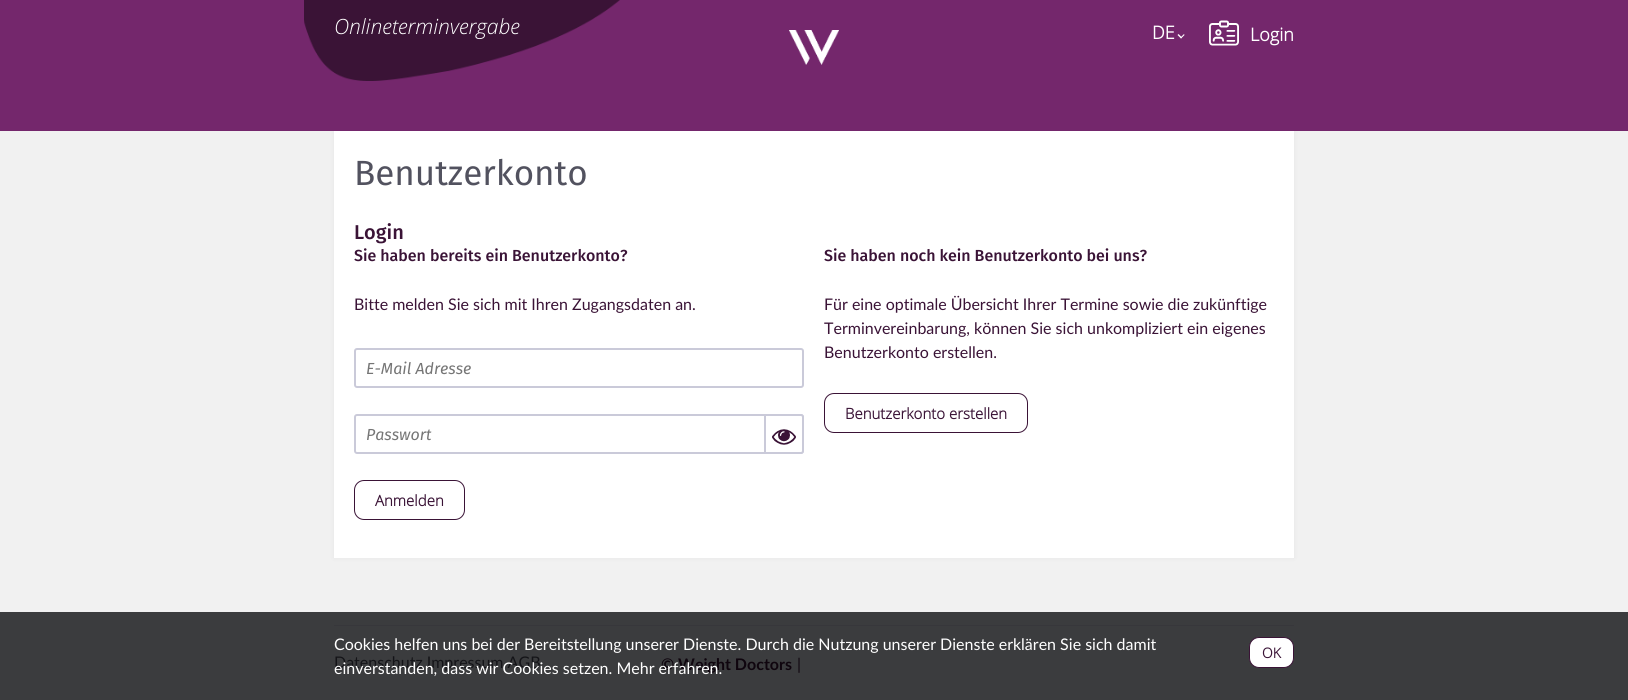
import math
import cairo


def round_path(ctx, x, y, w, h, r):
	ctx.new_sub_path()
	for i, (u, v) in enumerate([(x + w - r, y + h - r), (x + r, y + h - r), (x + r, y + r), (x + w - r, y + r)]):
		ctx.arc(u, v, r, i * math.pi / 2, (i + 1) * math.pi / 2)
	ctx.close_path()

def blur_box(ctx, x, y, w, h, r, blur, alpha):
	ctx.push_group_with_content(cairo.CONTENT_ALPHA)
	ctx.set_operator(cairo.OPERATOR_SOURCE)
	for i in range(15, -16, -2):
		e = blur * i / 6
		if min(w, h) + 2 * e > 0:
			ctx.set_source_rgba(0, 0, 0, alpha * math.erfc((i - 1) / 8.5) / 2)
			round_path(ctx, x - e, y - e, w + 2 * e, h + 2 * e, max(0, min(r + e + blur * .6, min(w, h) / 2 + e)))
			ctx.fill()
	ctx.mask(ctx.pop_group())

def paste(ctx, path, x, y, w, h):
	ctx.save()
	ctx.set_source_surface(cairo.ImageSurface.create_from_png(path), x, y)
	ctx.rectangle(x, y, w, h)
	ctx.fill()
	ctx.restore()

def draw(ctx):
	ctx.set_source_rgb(0.231, 0.235, 0.243)
	ctx.paint()
	ctx.set_source_rgb(0.945, 0.945, 0.945)
	ctx.rectangle(0, 131, 1628, 481)
	ctx.fill()
	ctx.set_source_rgb(0, 0, 0)
	blur_box(ctx, 334, 131, 960, 427, 0, 2.5, 0.05)
	ctx.set_source_rgb(0.455, 0.153, 0.424)
	ctx.rectangle(0, 0, 1628, 131)
	ctx.fill()
	paste(ctx, 'media/1.png', 304, 0, 316, 81)
	ctx.select_font_face('Open Sans Light', cairo.FONT_SLANT_ITALIC)
	ctx.set_font_size(21)
	ctx.set_source_rgb(1, 1, 1)
	ctx.move_to(334, 34)
	ctx.show_text('Onlineterminvergabe')
	paste(ctx, 'media/2.png', 789, 30, 50, 35)
	ctx.select_font_face('Open Sans', cairo.FONT_SLANT_NORMAL, cairo.FONT_WEIGHT_BOLD)
	ctx.set_font_size(18)
	ctx.move_to(1152, 39)
	ctx.show_text('DE')
	ctx.new_path()
	ctx.move_to(1180.5, 37.5)
	ctx.line_to(1184, 34)
	ctx.line_to(1184.5, 35)
	ctx.line_to(1181, 38.5)
	ctx.close_path()
	ctx.fill()
	ctx.new_path()
	ctx.move_to(1177.5, 35)
	ctx.line_to(1178.5, 34)
	ctx.line_to(1182, 37.5)
	ctx.line_to(1181, 38.5)
	ctx.close_path()
	ctx.fill()
	paste(ctx, 'media/3.png', 1209, 20, 30, 26)
	ctx.move_to(1250, 41)
	ctx.show_text('Login')
	ctx.rectangle(334, 131, 960, 427)
	ctx.fill()
	ctx.select_font_face('Fira Sans')
	ctx.set_font_size(35)
	ctx.set_source_rgb(0.322, 0.322, 0.373)
	ctx.move_to(354, 185)
	ctx.show_text('Benutzerkonto')
	ctx.select_font_face('Fira Sans Medium')
	ctx.set_font_size(20)
	ctx.set_source_rgb(0.227, 0.075, 0.212)
	ctx.move_to(354, 239)
	ctx.show_text('Login')
	ctx.set_font_size(16)
	ctx.move_to(354, 261)
	ctx.show_text('Sie haben bereits ein Benutzerkonto?')
	ctx.select_font_face('Lato')
	ctx.move_to(354, 310)
	ctx.show_text('Bitte melden Sie sich mit Ihren Zugangsdaten an.')
	round_path(ctx, 355, 349, 448, 38, 2)
	ctx.set_source_rgb(0.792, 0.792, 0.851)
	ctx.stroke()
	ctx.select_font_face('Fira Sans', cairo.FONT_SLANT_ITALIC)
	ctx.set_source_rgb(0.459, 0.459, 0.459)
	ctx.move_to(366, 374)
	ctx.show_text('E-Mail Adresse')
	round_path(ctx, 355, 415, 448, 38, 2)
	ctx.set_source_rgb(0.792, 0.792, 0.851)
	ctx.stroke()
	ctx.set_source_rgb(0.459, 0.459, 0.459)
	ctx.move_to(366, 440)
	ctx.show_text('Passwort')
	ctx.set_source_rgb(1, 1, 1)
	ctx.new_path()
	ctx.move_to(765, 415)
	ctx.line_to(801, 415)
	ctx.curve_to(802, 415, 803, 416, 803, 417)
	ctx.line_to(803, 451)
	ctx.curve_to(803, 452, 802, 453, 801, 453)
	ctx.line_to(765, 453)
	ctx.close_path()
	ctx.fill_preserve()
	ctx.set_source_rgb(0.792, 0.792, 0.851)
	ctx.stroke()
	paste(ctx, 'media/4.png', 772, 429, 24, 16)
	round_path(ctx, 354.5, 480.5, 110, 39, 9.5)
	ctx.set_source_rgb(0.227, 0.075, 0.212)
	ctx.set_line_width(1)
	ctx.stroke()
	ctx.select_font_face('Open Sans', cairo.FONT_SLANT_NORMAL, cairo.FONT_WEIGHT_BOLD)
	ctx.set_font_size(15)
	ctx.move_to(375, 506)
	ctx.show_text('Anmelden')
	ctx.select_font_face('Fira Sans Medium')
	ctx.set_font_size(16)
	ctx.move_to(824, 261)
	ctx.show_text('Sie haben noch kein Benutzerkonto bei uns?')
	ctx.select_font_face('Lato')
	for x, y, s in [
		(824, 310, 'Für eine optimale Übersicht Ihrer Termine sowie die zukünftige'),
		(824, 334, 'Terminvereinbarung, können Sie sich unkompliziert ein eigenes'),
		(824, 358, 'Benutzerkonto erstellen.'),
	]:
		ctx.move_to(x, y)
		ctx.show_text(s)
	round_path(ctx, 824.5, 393.5, 203, 39, 9.5)
	ctx.stroke()
	ctx.select_font_face('Open Sans', cairo.FONT_SLANT_NORMAL, cairo.FONT_WEIGHT_BOLD)
	ctx.set_font_size(15)
	ctx.move_to(845, 419)
	ctx.show_text('Benutzerkonto erstellen')
	ctx.select_font_face('Lato')
	ctx.set_font_size(16)
	ctx.set_source_rgb(1, 1, 1)
	ctx.move_to(334, 650)
	ctx.show_text('Cookies helfen uns bei der Bereitstellung unserer Dienste. Durch die Nutzung unserer Dienste erklären Sie sich damit')
	ctx.set_source_rgb(0.082, 0.082, 0.094)
	ctx.move_to(334, 668)
	ctx.show_text('Datenschutz Impressum AGB')
	ctx.select_font_face('Lato', cairo.FONT_SLANT_NORMAL, cairo.FONT_WEIGHT_BOLD)
	ctx.set_source_rgb(0.059, 0.02, 0.055)
	ctx.move_to(661, 670)
	ctx.show_text('© Weight Doctors')
	ctx.select_font_face('Lato')
	ctx.set_source_rgb(1, 1, 1)
	ctx.move_to(334, 674)
	ctx.show_text('einverstanden, dass wir Cookies setzen. Mehr erfahren.')
	round_path(ctx, 1249.5, 637.5, 44, 30, 9.5)
	ctx.fill_preserve()
	ctx.set_source_rgb(0.227, 0.075, 0.212)
	ctx.stroke()
	ctx.select_font_face('Open Sans', cairo.FONT_SLANT_NORMAL, cairo.FONT_WEIGHT_BOLD)
	ctx.set_font_size(14)
	ctx.move_to(1262, 658)
	ctx.show_text('OK')
	ctx.set_source_rgb(0.216, 0.216, 0.231)
	ctx.rectangle(334, 625, 960, 1)
	ctx.fill()
	ctx.select_font_face('Lato')
	ctx.set_font_size(16)
	ctx.set_source_rgb(0.059, 0.02, 0.055)
	ctx.move_to(797, 670)
	ctx.show_text('|')


surface = cairo.ImageSurface(cairo.FORMAT_RGB24, 1628, 700)
ctx = cairo.Context(surface)
options = cairo.FontOptions()
options.set_hint_metrics(cairo.HINT_METRICS_OFF)
options.set_hint_style(cairo.HINT_STYLE_NONE)
ctx.set_font_options(options)
ctx.set_miter_limit(4)
draw(ctx)
surface.write_to_png('image.png')
